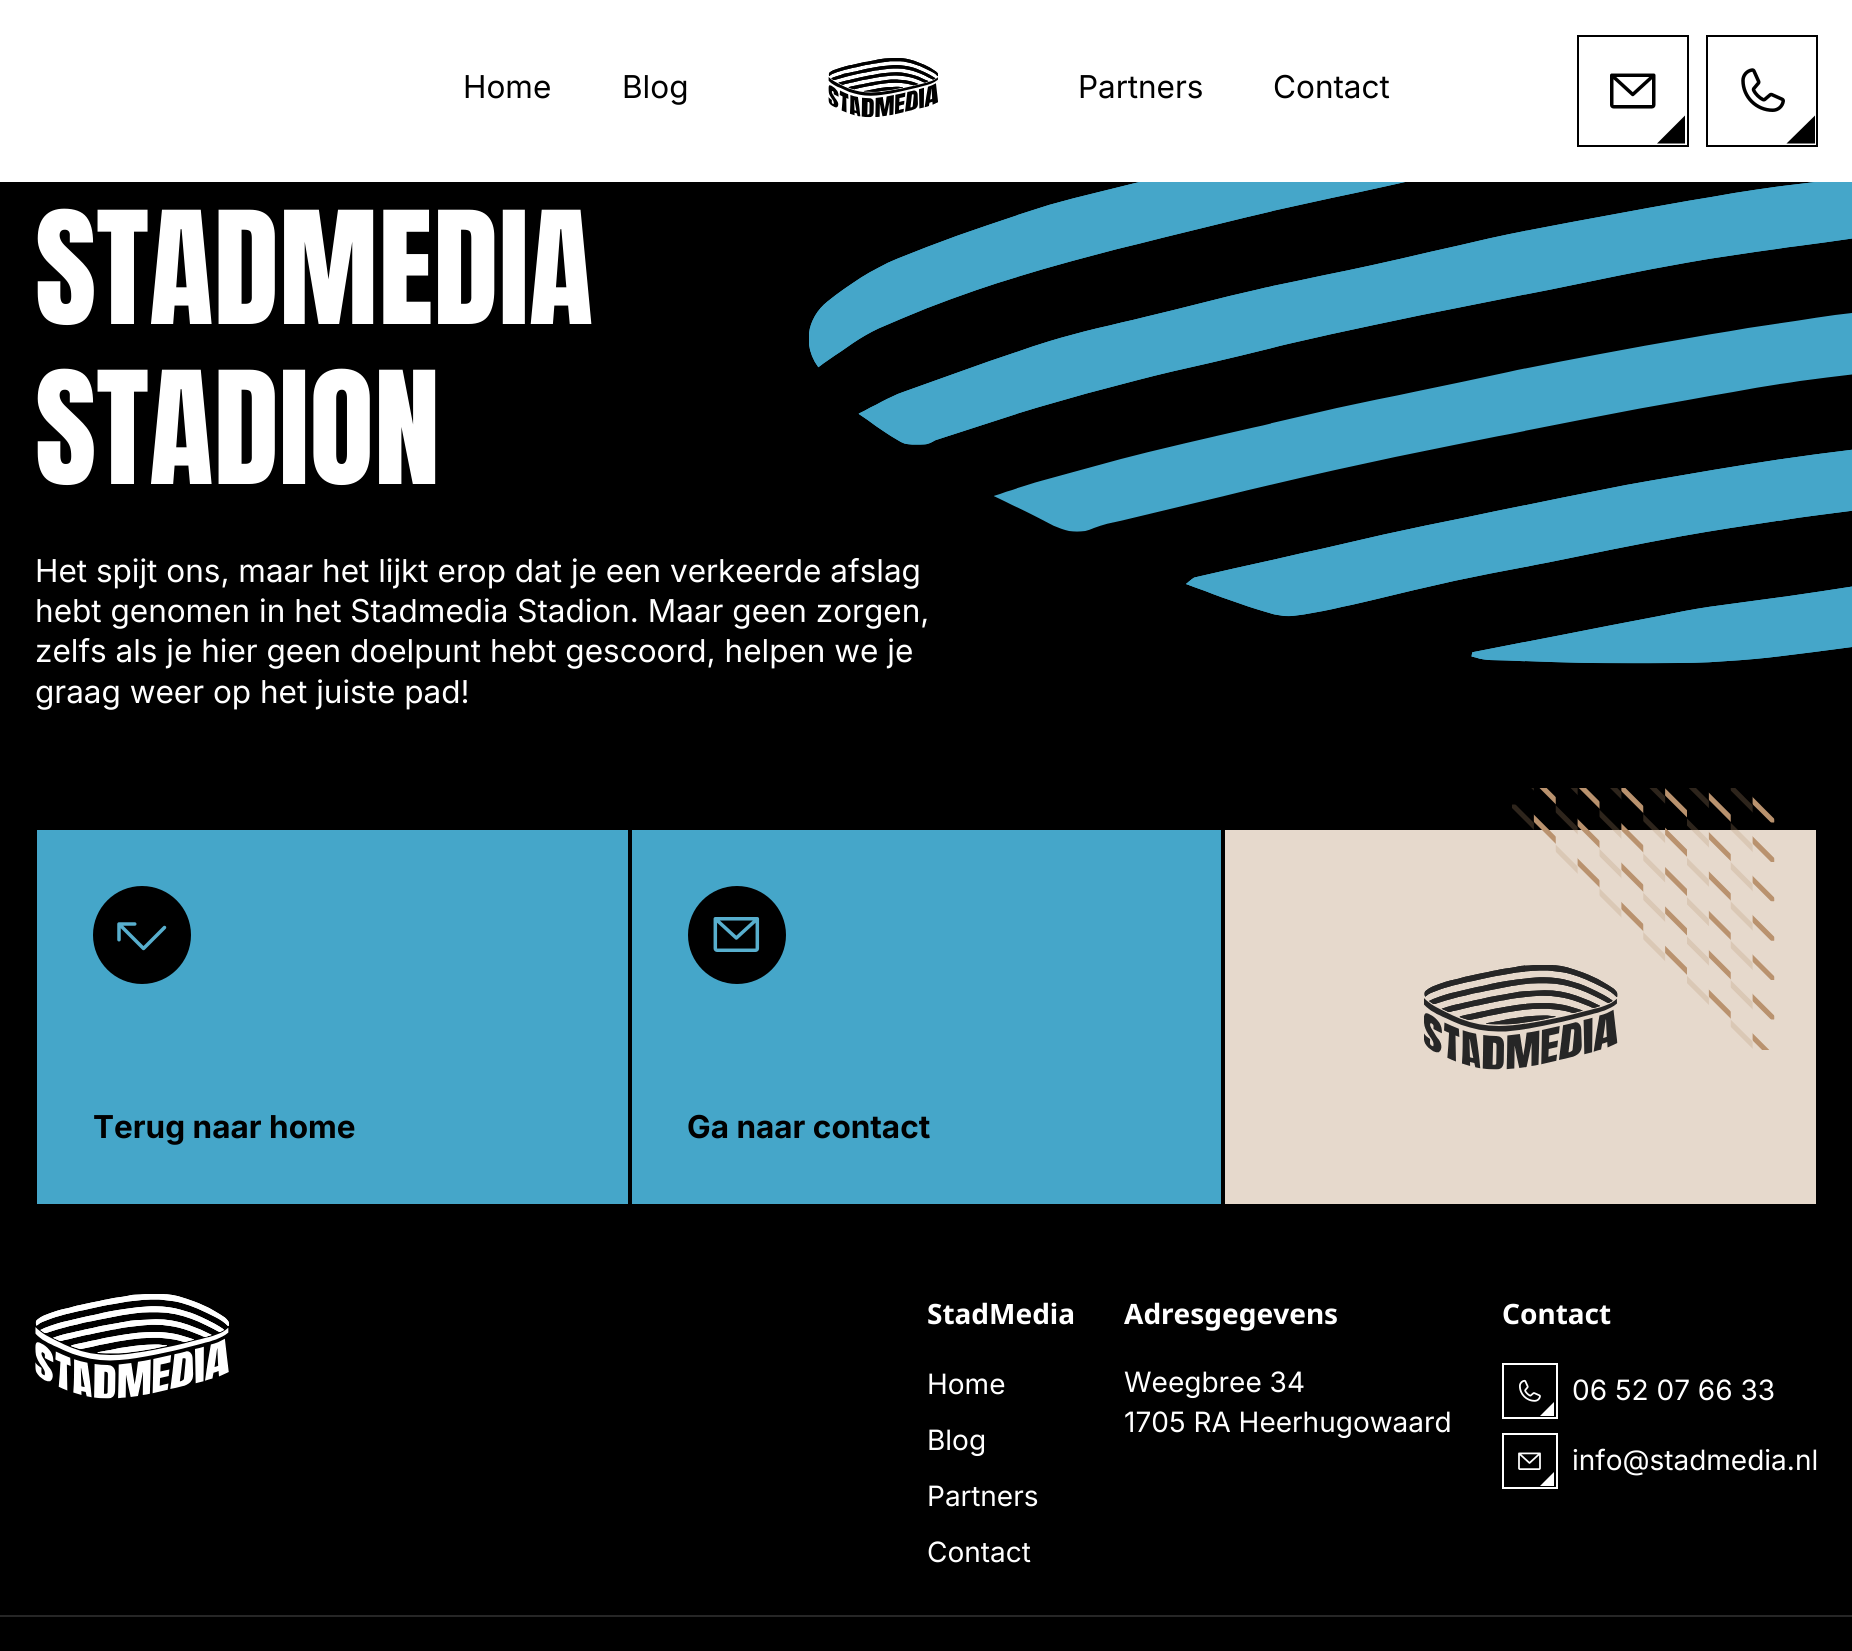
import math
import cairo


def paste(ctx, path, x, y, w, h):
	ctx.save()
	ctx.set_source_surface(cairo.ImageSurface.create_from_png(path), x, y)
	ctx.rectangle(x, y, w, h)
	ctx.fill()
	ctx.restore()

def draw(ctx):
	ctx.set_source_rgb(0, 0, 0)
	ctx.paint()
	ctx.set_source_rgb(1, 1, 1)
	ctx.rectangle(0, 0, 1852, 182)
	ctx.fill()
	ctx.select_font_face('Inter')
	ctx.set_font_size(31.5)
	ctx.set_source_rgb(0, 0, 0)
	ctx.move_to(463, 98)
	ctx.show_text('Home')
	ctx.move_to(622, 98)
	ctx.show_text('Blog')
	paste(ctx, 'media/1.png', 828, 58, 110, 60)
	ctx.move_to(1078, 98)
	ctx.show_text('Partners')
	ctx.move_to(1273, 98)
	ctx.show_text('Contact')
	ctx.rectangle(1578, 36, 110, 110)
	ctx.stroke()
	paste(ctx, 'media/2.png', 1610, 73, 46, 36)
	ctx.new_path()
	ctx.move_to(1685, 115.5)
	ctx.line_to(1685, 143.5)
	ctx.line_to(1657, 143.5)
	ctx.close_path()
	ctx.fill()
	ctx.rectangle(1707, 36, 110, 110)
	ctx.stroke()
	paste(ctx, 'media/3.png', 1741, 68, 44, 44)
	ctx.new_path()
	ctx.move_to(1815, 115.5)
	ctx.line_to(1815, 143.5)
	ctx.line_to(1786.5, 143.5)
	ctx.close_path()
	ctx.fill()
	ctx.select_font_face('Anton')
	ctx.set_font_size(133)
	ctx.set_source_rgb(1, 1, 1)
	ctx.move_to(35, 324)
	ctx.show_text('STADMEDIA')
	ctx.move_to(35, 484)
	ctx.show_text('STADION')
	paste(ctx, 'media/4.png', 809, 182, 1043, 482)
	ctx.select_font_face('Inter')
	ctx.set_font_size(31.5)
	for x, y, s in [
		(35, 582, 'Het spijt ons, maar het lijkt erop dat je een verkeerde afslag'),
		(35, 622, 'hebt genomen in het Stadmedia Stadion. Maar geen zorgen,'),
		(35, 662, 'zelfs als je hier geen doelpunt hebt gescoord, helpen we je'),
		(35, 703, 'graag weer op het juiste pad!'),
	]:
		ctx.move_to(x, y)
		ctx.show_text(s)
	ctx.set_source_rgb(0.271, 0.651, 0.788)
	ctx.rectangle(37, 830, 591, 374)
	ctx.fill()
	ctx.set_source_rgb(0, 0, 0)
	ctx.arc(142, 935, 49, 0, 2 * math.pi)
	ctx.fill()
	paste(ctx, 'media/5.png', 117, 922, 50, 29)
	ctx.select_font_face('Inter', cairo.FONT_SLANT_NORMAL, cairo.FONT_WEIGHT_BOLD)
	ctx.move_to(93, 1138)
	ctx.show_text('Terug naar home')
	ctx.set_source_rgb(0.271, 0.651, 0.788)
	ctx.rectangle(632, 830, 589, 374)
	ctx.fill()
	ctx.set_source_rgb(0, 0, 0)
	ctx.arc(737, 935, 49, 0, 2 * math.pi)
	ctx.fill()
	paste(ctx, 'media/6.png', 713, 917, 47, 35)
	ctx.move_to(687, 1138)
	ctx.show_text('Ga naar contact')
	ctx.set_source_rgb(0.902, 0.851, 0.8)
	ctx.rectangle(1225, 830, 591, 374)
	ctx.fill()
	paste(ctx, 'media/8.png', 1424, 965, 194, 105)
	paste(ctx, 'media/7.png', 1512, 788, 263, 262)
	paste(ctx, 'media/9.png', 35, 1294, 194, 105)
	ctx.select_font_face('Noto Sans', cairo.FONT_SLANT_NORMAL, cairo.FONT_WEIGHT_BOLD)
	ctx.set_font_size(28)
	ctx.set_source_rgb(1, 1, 1)
	ctx.move_to(927, 1324)
	ctx.show_text('StadMedia')
	ctx.select_font_face('Inter')
	for x, y, s in [
		(927, 1394, 'Home'),
		(927, 1450, 'Blog'),
		(927, 1506, 'Partners'),
		(927, 1562, 'Contact'),
	]:
		ctx.move_to(x, y)
		ctx.show_text(s)
	ctx.select_font_face('Noto Sans', cairo.FONT_SLANT_NORMAL, cairo.FONT_WEIGHT_BOLD)
	ctx.move_to(1124, 1324)
	ctx.show_text('Adresgegevens')
	ctx.select_font_face('Inter')
	ctx.move_to(1124, 1392)
	ctx.show_text('Weegbree 34')
	ctx.move_to(1124, 1432)
	ctx.show_text('1705 RA Heerhugowaard')
	ctx.select_font_face('Noto Sans', cairo.FONT_SLANT_NORMAL, cairo.FONT_WEIGHT_BOLD)
	ctx.move_to(1502, 1324)
	ctx.show_text('Contact')
	ctx.rectangle(1503, 1364, 54, 54)
	ctx.stroke()
	paste(ctx, 'media/10.png', 1519, 1379, 22, 23)
	ctx.new_path()
	ctx.move_to(1554, 1402)
	ctx.line_to(1554, 1416)
	ctx.line_to(1540, 1416)
	ctx.close_path()
	ctx.fill()
	ctx.select_font_face('Inter')
	ctx.move_to(1572, 1400)
	ctx.show_text('06 52 07 66 33')
	ctx.rectangle(1503, 1434, 54, 54)
	ctx.stroke()
	paste(ctx, 'media/11.png', 1518, 1452, 23, 18)
	ctx.new_path()
	ctx.move_to(1554, 1472)
	ctx.line_to(1554, 1486)
	ctx.line_to(1540, 1486)
	ctx.close_path()
	ctx.fill()
	ctx.move_to(1572, 1470)
	ctx.show_text('info@stadmedia.nl')
	ctx.set_source_rgb(0.149, 0.149, 0.149)
	ctx.rectangle(0, 1615, 1852, 2)
	ctx.fill()


surface = cairo.ImageSurface(cairo.FORMAT_RGB24, 1852, 1651)
ctx = cairo.Context(surface)
options = cairo.FontOptions()
options.set_hint_metrics(cairo.HINT_METRICS_OFF)
options.set_hint_style(cairo.HINT_STYLE_NONE)
ctx.set_font_options(options)
ctx.set_miter_limit(4)
draw(ctx)
surface.write_to_png('image.png')
